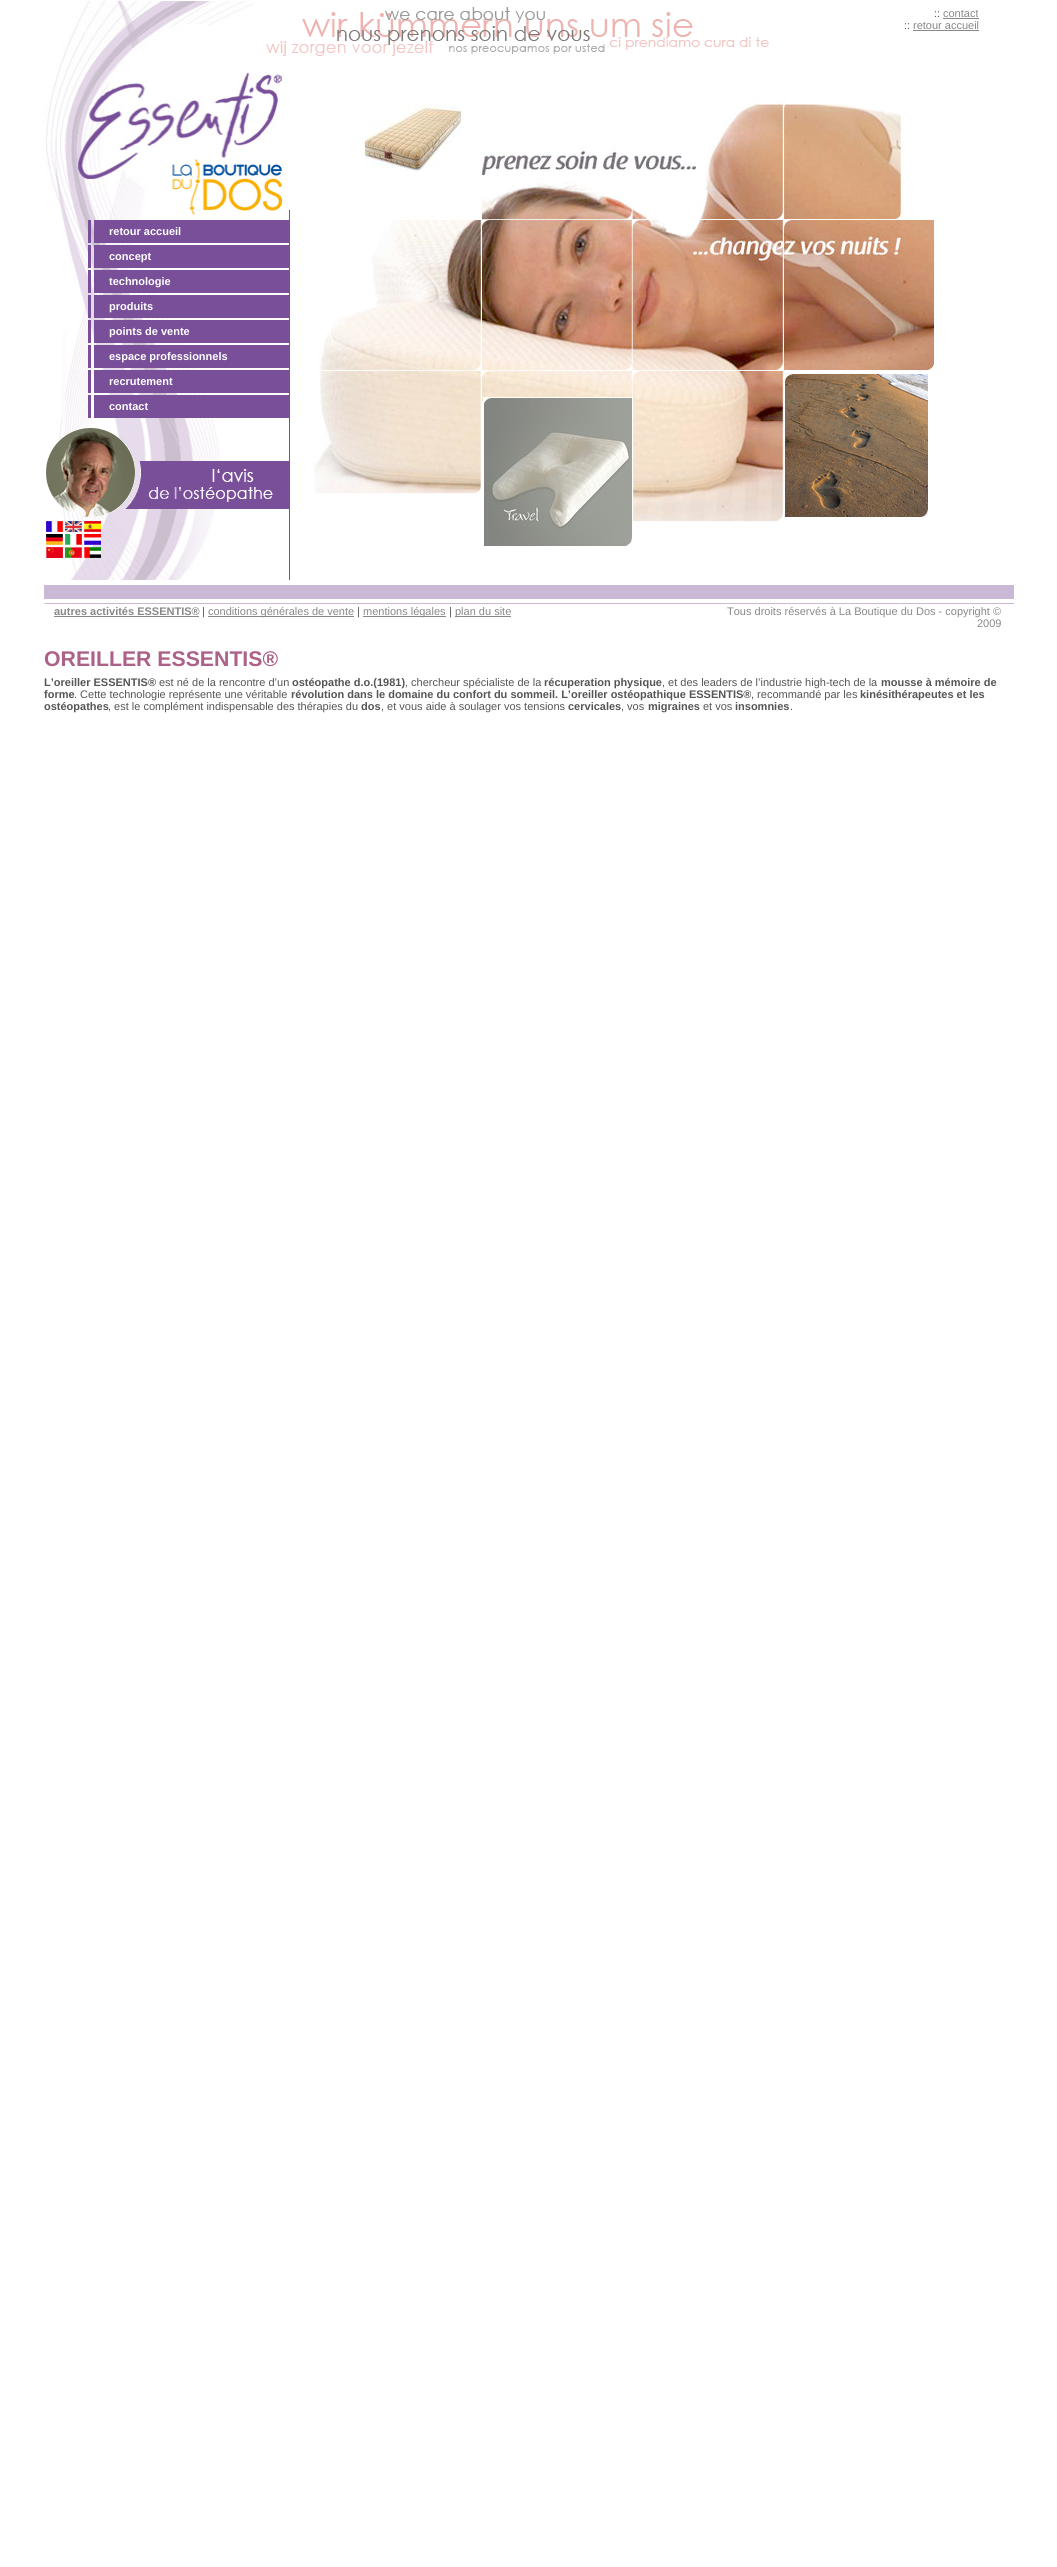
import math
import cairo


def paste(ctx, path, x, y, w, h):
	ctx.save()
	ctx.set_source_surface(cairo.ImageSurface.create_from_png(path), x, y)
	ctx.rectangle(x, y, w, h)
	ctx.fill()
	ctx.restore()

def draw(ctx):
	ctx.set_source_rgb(1, 1, 1)
	ctx.paint()
	paste(ctx, 'media/1.png', 44, 0, 241, 580)
	paste(ctx, 'media/2.png', 253, 3, 516, 53)
	ctx.select_font_face('Liberation Sans')
	ctx.set_font_size(11)
	ctx.set_source_rgb(0.333, 0.333, 0.333)
	ctx.move_to(934, 17)
	ctx.show_text('::')
	ctx.set_source_rgb(0.533, 0.533, 0.533)
	ctx.move_to(943, 17)
	ctx.show_text('contact')
	ctx.rectangle(943, 18, 36, 1)
	ctx.fill()
	ctx.set_source_rgb(0.333, 0.333, 0.333)
	ctx.move_to(904, 29)
	ctx.show_text('::')
	ctx.set_source_rgb(0.533, 0.533, 0.533)
	ctx.move_to(913, 29)
	ctx.show_text('retour accueil')
	ctx.rectangle(913, 30, 66, 1)
	ctx.fill()
	ctx.set_source_rgb(0.475, 0.31, 0.604)
	ctx.rectangle(289, 210, 1, 370)
	ctx.fill()
	paste(ctx, 'media/3.png', 88, 220, 201, 23)
	ctx.select_font_face('Liberation Sans', cairo.FONT_SLANT_NORMAL, cairo.FONT_WEIGHT_BOLD)
	ctx.set_source_rgb(1, 1, 1)
	ctx.move_to(109, 235)
	ctx.show_text('retour accueil')
	paste(ctx, 'media/4.png', 88, 245, 201, 23)
	ctx.move_to(109, 260)
	ctx.show_text('concept')
	paste(ctx, 'media/5.png', 88, 270, 201, 23)
	ctx.move_to(109, 285)
	ctx.show_text('technologie')
	paste(ctx, 'media/6.png', 88, 295, 201, 23)
	ctx.move_to(109, 310)
	ctx.show_text('produits')
	paste(ctx, 'media/7.png', 88, 320, 201, 23)
	ctx.move_to(109, 335)
	ctx.show_text('points de vente')
	paste(ctx, 'media/8.png', 88, 345, 201, 23)
	ctx.move_to(109, 360)
	ctx.show_text('espace professionnels')
	paste(ctx, 'media/9.png', 88, 370, 201, 23)
	ctx.move_to(109, 385)
	ctx.show_text('recrutement')
	paste(ctx, 'media/10.png', 88, 395, 201, 23)
	ctx.move_to(109, 410)
	ctx.show_text('contact')
	paste(ctx, 'media/11.png', 46, 428, 243, 89)
	paste(ctx, 'media/12.png', 46, 521, 17, 11)
	paste(ctx, 'media/13.png', 65, 521, 17, 11)
	paste(ctx, 'media/14.png', 84, 521, 17, 11)
	paste(ctx, 'media/15.png', 46, 534, 17, 11)
	paste(ctx, 'media/16.png', 65, 534, 17, 11)
	paste(ctx, 'media/17.png', 84, 534, 17, 11)
	paste(ctx, 'media/18.png', 46, 547, 17, 11)
	paste(ctx, 'media/19.png', 65, 547, 17, 11)
	paste(ctx, 'media/20.png', 84, 547, 17, 11)
	paste(ctx, 'media/21.png', 314, 98, 620, 424)
	paste(ctx, 'media/22.png', 364, 104, 98, 67)
	paste(ctx, 'media/23.png', 483, 397, 150, 150)
	paste(ctx, 'media/24.png', 784, 373, 144, 144)
	paste(ctx, 'media/25.png', 44, 585, 970, 19)
	ctx.set_source_rgb(0.533, 0.533, 0.533)
	ctx.move_to(54, 615)
	ctx.show_text('autres activités ESSENTIS®')
	ctx.rectangle(54, 616, 145, 1)
	ctx.fill()
	ctx.select_font_face('Liberation Sans')
	ctx.set_source_rgb(0.333, 0.333, 0.333)
	ctx.move_to(202, 615)
	ctx.show_text('|')
	ctx.set_source_rgb(0.533, 0.533, 0.533)
	ctx.rectangle(208, 616, 146, 1)
	ctx.fill()
	ctx.move_to(208, 615)
	ctx.show_text('conditions générales de vente')
	ctx.set_source_rgb(0.333, 0.333, 0.333)
	ctx.move_to(357, 615)
	ctx.show_text('|')
	ctx.set_source_rgb(0.533, 0.533, 0.533)
	ctx.rectangle(363, 616, 83, 1)
	ctx.fill()
	ctx.move_to(363, 615)
	ctx.show_text('mentions légales')
	ctx.set_source_rgb(0.333, 0.333, 0.333)
	ctx.move_to(449, 615)
	ctx.show_text('|')
	ctx.set_source_rgb(0.533, 0.533, 0.533)
	ctx.rectangle(455, 616, 56, 1)
	ctx.fill()
	for x, y, s in [
		(455, 615, 'plan du site'),
		(727, 615, 'Tous droits réservés à La Boutique du Dos - copyright ©'),
		(977, 627, '2009'),
	]:
		ctx.move_to(x, y)
		ctx.show_text(s)
	ctx.select_font_face('Liberation Sans', cairo.FONT_SLANT_NORMAL, cairo.FONT_WEIGHT_BOLD)
	ctx.set_font_size(21.25)
	ctx.set_source_rgb(0.671, 0.38, 0.533)
	ctx.move_to(44, 666)
	ctx.show_text('OREILLER ESSENTIS®')
	ctx.set_font_size(11)
	ctx.set_source_rgb(0.333, 0.333, 0.333)
	ctx.move_to(44, 686)
	ctx.show_text('L’oreiller ESSENTIS®')
	ctx.select_font_face('Liberation Sans')
	ctx.move_to(159, 686)
	ctx.show_text('est né de la rencontre d’un')
	ctx.select_font_face('Liberation Sans', cairo.FONT_SLANT_NORMAL, cairo.FONT_WEIGHT_BOLD)
	ctx.move_to(292, 686)
	ctx.show_text('ostéopathe d.o.(1981)')
	ctx.select_font_face('Liberation Sans')
	ctx.move_to(405, 686)
	ctx.show_text(', chercheur spécialiste de la')
	ctx.select_font_face('Liberation Sans', cairo.FONT_SLANT_NORMAL, cairo.FONT_WEIGHT_BOLD)
	ctx.move_to(544, 686)
	ctx.show_text('récuperation physique')
	ctx.select_font_face('Liberation Sans')
	ctx.move_to(662, 686)
	ctx.show_text(', et des leaders de l’industrie high-tech de la')
	ctx.select_font_face('Liberation Sans', cairo.FONT_SLANT_NORMAL, cairo.FONT_WEIGHT_BOLD)
	ctx.move_to(881, 686)
	ctx.show_text('mousse à mémoire de')
	ctx.move_to(44, 698)
	ctx.show_text('forme')
	ctx.select_font_face('Liberation Sans')
	ctx.move_to(74, 698)
	ctx.show_text('. Cette technologie représente une véritable')
	ctx.select_font_face('Liberation Sans', cairo.FONT_SLANT_NORMAL, cairo.FONT_WEIGHT_BOLD)
	ctx.move_to(291, 698)
	ctx.show_text('révolution dans le domaine du confort du sommeil. L’oreiller ostéopathique ESSENTIS®')
	ctx.select_font_face('Liberation Sans')
	ctx.move_to(751, 698)
	ctx.show_text(', recommandé par les')
	ctx.select_font_face('Liberation Sans', cairo.FONT_SLANT_NORMAL, cairo.FONT_WEIGHT_BOLD)
	ctx.move_to(860, 698)
	ctx.show_text('kinésithérapeutes et les')
	ctx.move_to(44, 710)
	ctx.show_text('ostéopathes')
	ctx.select_font_face('Liberation Sans')
	ctx.move_to(108, 710)
	ctx.show_text(', est le complément indispensable des thérapies du')
	ctx.select_font_face('Liberation Sans', cairo.FONT_SLANT_NORMAL, cairo.FONT_WEIGHT_BOLD)
	ctx.move_to(361, 710)
	ctx.show_text('dos')
	ctx.select_font_face('Liberation Sans')
	ctx.move_to(381, 710)
	ctx.show_text(', et vous aide à soulager vos tensions')
	ctx.select_font_face('Liberation Sans', cairo.FONT_SLANT_NORMAL, cairo.FONT_WEIGHT_BOLD)
	ctx.move_to(568, 710)
	ctx.show_text('cervicales')
	ctx.select_font_face('Liberation Sans')
	ctx.move_to(621, 710)
	ctx.show_text(', vos')
	ctx.select_font_face('Liberation Sans', cairo.FONT_SLANT_NORMAL, cairo.FONT_WEIGHT_BOLD)
	ctx.move_to(648, 710)
	ctx.show_text('migraines')
	ctx.select_font_face('Liberation Sans')
	ctx.move_to(703, 710)
	ctx.show_text('et vos')
	ctx.select_font_face('Liberation Sans', cairo.FONT_SLANT_NORMAL, cairo.FONT_WEIGHT_BOLD)
	ctx.move_to(735, 710)
	ctx.show_text('insomnies')
	ctx.select_font_face('Liberation Sans')
	ctx.move_to(790, 710)
	ctx.show_text('.')


surface = cairo.ImageSurface(cairo.FORMAT_RGB24, 1057, 2567)
ctx = cairo.Context(surface)
options = cairo.FontOptions()
options.set_hint_metrics(cairo.HINT_METRICS_OFF)
options.set_hint_style(cairo.HINT_STYLE_NONE)
ctx.set_font_options(options)
ctx.set_miter_limit(4)
draw(ctx)
surface.write_to_png('image.png')
